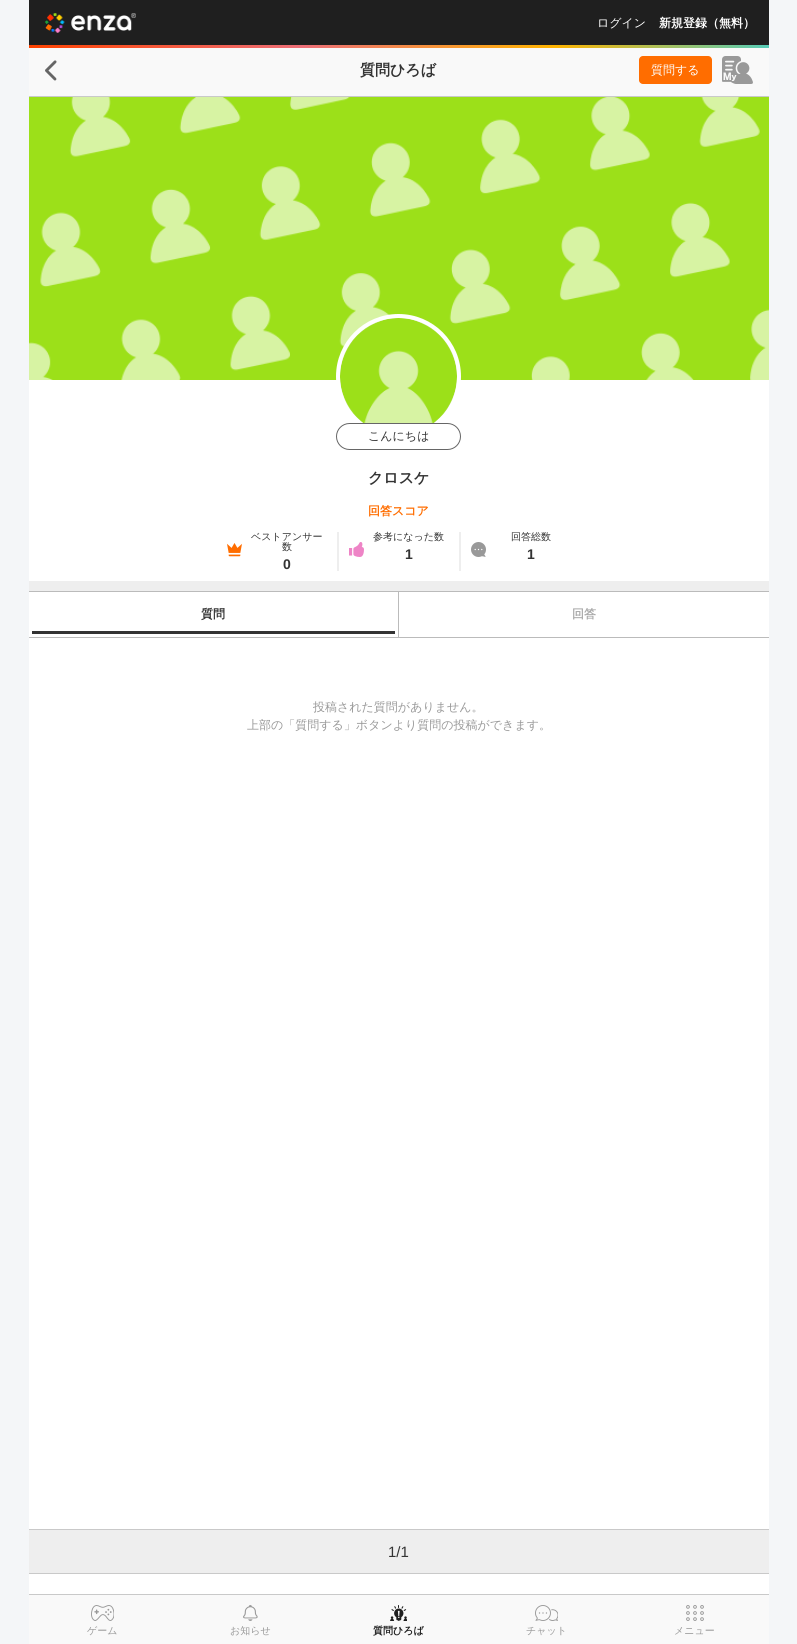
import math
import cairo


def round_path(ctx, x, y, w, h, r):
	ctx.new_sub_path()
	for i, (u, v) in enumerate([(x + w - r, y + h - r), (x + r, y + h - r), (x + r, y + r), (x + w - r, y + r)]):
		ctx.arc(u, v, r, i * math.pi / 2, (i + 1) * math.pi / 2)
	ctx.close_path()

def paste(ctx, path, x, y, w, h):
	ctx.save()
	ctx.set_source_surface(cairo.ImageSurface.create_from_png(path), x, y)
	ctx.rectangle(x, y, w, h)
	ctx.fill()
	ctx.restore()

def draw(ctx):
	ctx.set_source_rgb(0.957, 0.961, 0.969)
	ctx.paint()
	ctx.set_source_rgb(1, 1, 1)
	ctx.rectangle(29, 380, 740, 1214)
	ctx.fill()
	ctx.set_source_rgb(0.122, 0.122, 0.122)
	ctx.rectangle(29, 0, 740, 45)
	ctx.fill()
	paste(ctx, 'media/1.png', 45, 13, 91, 20)
	ctx.select_font_face('WenQuanYi Zen Hei Medium')
	ctx.set_font_size(12)
	ctx.set_source_rgb(1, 1, 1)
	ctx.move_to(597, 27)
	ctx.show_text('ログイン')
	ctx.select_font_face('WenQuanYi Zen Hei', cairo.FONT_SLANT_NORMAL, cairo.FONT_WEIGHT_BOLD)
	ctx.move_to(659, 27)
	ctx.show_text('新規登録（無料）')
	gradient = cairo.LinearGradient(29, 47, 769, 46)
	gradient.add_color_stop_rgba(0, 0.996, 0.259, 0, 1)
	gradient.add_color_stop_rgba(0.37, 0.929, 0.435, 0.471, 1)
	gradient.add_color_stop_rgba(0.71, 0.996, 0.702, 0, 1)
	gradient.add_color_stop_rgba(1, 0.337, 0.8, 0.718, 1)
	ctx.set_source(gradient)
	ctx.rectangle(29, 45, 740, 3)
	ctx.fill()
	ctx.set_source_rgb(0.973, 0.973, 0.973)
	ctx.rectangle(29, 48, 740, 48)
	ctx.fill()
	ctx.set_source_rgb(0.788, 0.788, 0.788)
	ctx.rectangle(29, 96, 740, 1)
	ctx.fill()
	paste(ctx, 'media/2.png', 45, 60, 12, 21)
	ctx.set_font_size(15)
	ctx.set_source_rgb(0.2, 0.2, 0.2)
	ctx.move_to(360, 75)
	ctx.show_text('質問ひろば')
	ctx.set_source_rgb(1, 0.427, 0)
	round_path(ctx, 639, 56, 73, 28, 4)
	ctx.fill()
	ctx.select_font_face('WenQuanYi Zen Hei Medium')
	ctx.set_font_size(12)
	ctx.set_source_rgb(1, 1, 1)
	ctx.move_to(651, 74)
	ctx.show_text('質問する')
	paste(ctx, 'media/3.png', 722, 56, 31, 28)
	paste(ctx, 'media/4.png', 29, 97, 740, 283)
	ctx.set_source_rgb(0.933, 0.933, 0.933)
	ctx.arc(398.5, 376.5, 60.5, 0, 2 * math.pi)
	ctx.fill_preserve()
	ctx.set_source_rgb(1, 1, 1)
	ctx.set_line_width(4)
	ctx.stroke()
	paste(ctx, 'media/5.png', 340, 318, 117, 105)
	round_path(ctx, 336.5, 423.5, 124, 26, 13)
	ctx.fill_preserve()
	ctx.set_source_rgb(0.4, 0.4, 0.4)
	ctx.set_line_width(1)
	ctx.stroke()
	ctx.set_source_rgb(0.2, 0.2, 0.2)
	ctx.move_to(368, 440)
	ctx.show_text('こんにちは')
	ctx.select_font_face('WenQuanYi Zen Hei', cairo.FONT_SLANT_NORMAL, cairo.FONT_WEIGHT_BOLD)
	ctx.set_font_size(15)
	ctx.move_to(368, 483)
	ctx.show_text('クロスケ')
	ctx.set_source_rgb(0.933, 0.933, 0.933)
	ctx.rectangle(29, 581, 740, 10)
	ctx.fill()
	ctx.set_font_size(12)
	ctx.set_source_rgb(1, 0.427, 0)
	ctx.move_to(368, 515)
	ctx.show_text('回答スコア')
	paste(ctx, 'media/6.png', 227, 543, 15, 14)
	ctx.set_source_rgb(0.933, 0.933, 0.933)
	ctx.rectangle(337, 532, 2, 39)
	ctx.fill()
	ctx.select_font_face('WenQuanYi Zen Hei Medium')
	ctx.set_font_size(10)
	ctx.set_source_rgb(0.2, 0.2, 0.2)
	ctx.move_to(251, 540)
	ctx.show_text('ベストアンサー')
	ctx.move_to(282, 550)
	ctx.show_text('数')
	ctx.select_font_face('Liberation Sans', cairo.FONT_SLANT_NORMAL, cairo.FONT_WEIGHT_BOLD)
	ctx.set_font_size(14)
	ctx.move_to(283, 569)
	ctx.show_text('0')
	paste(ctx, 'media/7.png', 349, 542, 15, 15)
	ctx.set_source_rgb(0.933, 0.933, 0.933)
	ctx.rectangle(459, 532, 2, 39)
	ctx.fill()
	ctx.select_font_face('WenQuanYi Zen Hei Medium')
	ctx.set_font_size(10)
	ctx.set_source_rgb(0.2, 0.2, 0.2)
	ctx.move_to(373, 540)
	ctx.show_text('参考になった数')
	ctx.select_font_face('Liberation Sans', cairo.FONT_SLANT_NORMAL, cairo.FONT_WEIGHT_BOLD)
	ctx.set_font_size(14)
	ctx.move_to(405, 559)
	ctx.show_text('1')
	paste(ctx, 'media/8.png', 471, 542, 15, 15)
	ctx.select_font_face('WenQuanYi Zen Hei Medium')
	ctx.set_font_size(10)
	ctx.move_to(511, 540)
	ctx.show_text('回答総数')
	ctx.select_font_face('Liberation Sans', cairo.FONT_SLANT_NORMAL, cairo.FONT_WEIGHT_BOLD)
	ctx.set_font_size(14)
	ctx.move_to(527, 559)
	ctx.show_text('1')
	ctx.set_source_rgb(0.733, 0.733, 0.733)
	ctx.rectangle(29, 591, 740, 1)
	ctx.rectangle(29, 637, 740, 1)
	ctx.rectangle(398, 592, 1, 45)
	ctx.fill()
	ctx.select_font_face('WenQuanYi Zen Hei', cairo.FONT_SLANT_NORMAL, cairo.FONT_WEIGHT_BOLD)
	ctx.set_font_size(12)
	ctx.set_source_rgb(0.2, 0.2, 0.2)
	ctx.move_to(201, 618)
	ctx.show_text('質問')
	ctx.rectangle(32, 631, 363, 3)
	ctx.fill()
	ctx.set_source_rgb(0.667, 0.667, 0.667)
	ctx.move_to(572, 618)
	ctx.show_text('回答')
	ctx.select_font_face('WenQuanYi Zen Hei Medium')
	ctx.set_source_rgb(0.6, 0.6, 0.6)
	ctx.move_to(313, 711)
	ctx.show_text('投稿された質問がありません。')
	ctx.move_to(247, 729)
	ctx.show_text('上部の「質問する」ボタンより質問の投稿ができます。')
	ctx.set_source_rgb(0.933, 0.933, 0.933)
	ctx.rectangle(29, 1530, 740, 43)
	ctx.fill()
	ctx.set_source_rgb(0.788, 0.788, 0.788)
	ctx.rectangle(29, 1529, 740, 1)
	ctx.rectangle(29, 1573, 740, 1)
	ctx.fill()
	ctx.select_font_face('Liberation Sans')
	ctx.set_font_size(15)
	ctx.set_source_rgb(0.2, 0.2, 0.2)
	ctx.move_to(388, 1557)
	ctx.show_text('1/1')
	ctx.set_source_rgb(0.973, 0.973, 0.973)
	ctx.rectangle(29, 1595, 740, 49)
	ctx.fill()
	ctx.set_source_rgb(0.788, 0.788, 0.788)
	ctx.rectangle(29, 1594, 740, 1)
	ctx.fill()
	paste(ctx, 'media/9.png', 91, 1605, 23, 16)
	ctx.select_font_face('WenQuanYi Zen Hei Medium')
	ctx.set_font_size(10)
	ctx.set_source_rgb(0.6, 0.6, 0.6)
	ctx.move_to(87, 1634)
	ctx.show_text('ゲーム')
	paste(ctx, 'media/10.png', 243, 1605, 15, 16)
	ctx.move_to(230, 1634)
	ctx.show_text('お知らせ')
	paste(ctx, 'media/11.png', 390, 1605, 17, 16)
	ctx.select_font_face('WenQuanYi Zen Hei', cairo.FONT_SLANT_NORMAL, cairo.FONT_WEIGHT_BOLD)
	ctx.set_source_rgb(0.122, 0.122, 0.122)
	ctx.move_to(373, 1634)
	ctx.show_text('質問ひろば')
	paste(ctx, 'media/12.png', 535, 1605, 23, 16)
	ctx.select_font_face('WenQuanYi Zen Hei Medium')
	ctx.set_source_rgb(0.6, 0.6, 0.6)
	ctx.move_to(526, 1634)
	ctx.show_text('チャット')
	paste(ctx, 'media/13.png', 686, 1605, 18, 16)
	ctx.move_to(674, 1634)
	ctx.show_text('メニュー')


surface = cairo.ImageSurface(cairo.FORMAT_RGB24, 797, 1644)
ctx = cairo.Context(surface)
options = cairo.FontOptions()
options.set_hint_metrics(cairo.HINT_METRICS_OFF)
options.set_hint_style(cairo.HINT_STYLE_NONE)
ctx.set_font_options(options)
ctx.set_miter_limit(4)
draw(ctx)
surface.write_to_png('image.png')
